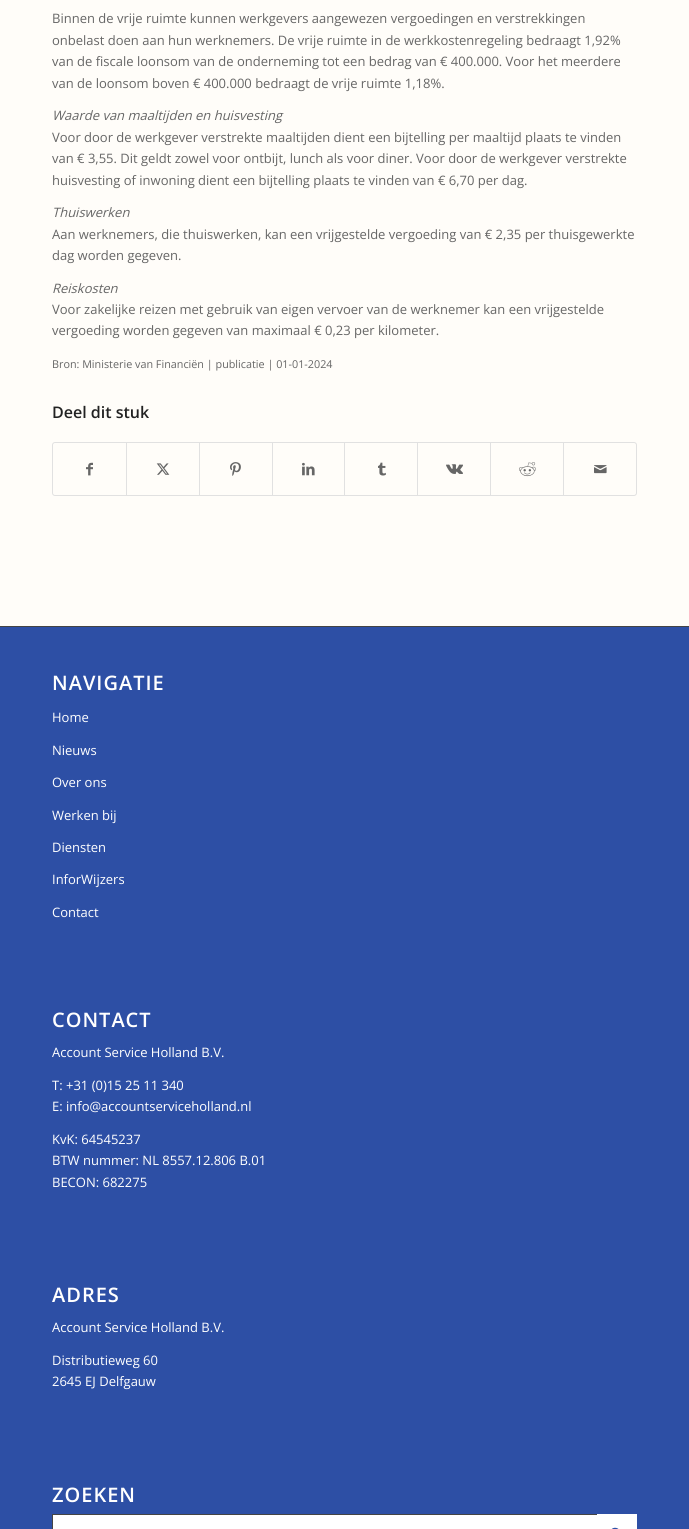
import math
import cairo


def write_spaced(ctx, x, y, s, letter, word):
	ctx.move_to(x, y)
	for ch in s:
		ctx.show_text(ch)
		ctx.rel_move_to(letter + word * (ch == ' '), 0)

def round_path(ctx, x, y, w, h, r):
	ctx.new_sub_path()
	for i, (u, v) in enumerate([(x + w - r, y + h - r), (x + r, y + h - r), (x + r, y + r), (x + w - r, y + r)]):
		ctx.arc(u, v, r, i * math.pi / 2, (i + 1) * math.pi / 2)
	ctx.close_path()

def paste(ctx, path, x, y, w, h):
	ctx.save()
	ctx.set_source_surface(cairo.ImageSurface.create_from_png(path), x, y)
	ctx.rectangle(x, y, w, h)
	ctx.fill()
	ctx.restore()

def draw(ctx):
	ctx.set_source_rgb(1, 0.992, 0.976)
	ctx.paint()
	ctx.select_font_face('Open Sans')
	ctx.set_font_size(13)
	ctx.set_source_rgb(0.4, 0.4, 0.4)
	for x, y, s in [
		(52, 23, 'Binnen de vrije ruimte kunnen werkgevers aangewezen vergoedingen en verstrekkingen'),
		(52, 45, 'onbelast doen aan hun werknemers. De vrije ruimte in de werkkostenregeling bedraagt 1,92%'),
		(52, 66, 'van de fiscale loonsom van de onderneming tot een bedrag van € 400.000. Voor het meerdere'),
		(52, 88, 'van de loonsom boven € 400.000 bedraagt de vrije ruimte 1,18%.'),
	]:
		ctx.move_to(x, y)
		ctx.show_text(s)
	ctx.select_font_face('Open Sans', cairo.FONT_SLANT_ITALIC)
	ctx.move_to(52, 120)
	ctx.show_text('Waarde van maaltijden en huisvesting')
	ctx.select_font_face('Open Sans')
	for x, y, s in [
		(52, 142, 'Voor door de werkgever verstrekte maaltijden dient een bijtelling per maaltijd plaats te vinden'),
		(52, 163, 'van € 3,55. Dit geldt zowel voor ontbijt, lunch als voor diner. Voor door de werkgever verstrekte'),
		(52, 185, 'huisvesting of inwoning dient een bijtelling plaats te vinden van € 6,70 per dag.'),
	]:
		ctx.move_to(x, y)
		ctx.show_text(s)
	ctx.select_font_face('Open Sans', cairo.FONT_SLANT_ITALIC)
	ctx.move_to(52, 217)
	ctx.show_text('Thuiswerken')
	ctx.select_font_face('Open Sans')
	ctx.move_to(52, 239)
	ctx.show_text('Aan werknemers, die thuiswerken, kan een vrijgestelde vergoeding van € 2,35 per thuisgewerkte')
	ctx.move_to(52, 260)
	ctx.show_text('dag worden gegeven.')
	ctx.select_font_face('Open Sans', cairo.FONT_SLANT_ITALIC)
	ctx.move_to(52, 293)
	ctx.show_text('Reiskosten')
	ctx.select_font_face('Open Sans')
	ctx.move_to(52, 314)
	ctx.show_text('Voor zakelijke reizen met gebruik van eigen vervoer van de werknemer kan een vrijgestelde')
	ctx.move_to(52, 335)
	ctx.show_text('vergoeding worden gegeven van maximaal € 0,23 per kilometer.')
	ctx.set_font_size(10.8)
	ctx.move_to(52, 368)
	ctx.show_text('Bron: Ministerie van Financiën | publicatie | 01-01-2024')
	ctx.select_font_face('Open Sans SemiBold')
	ctx.set_font_size(16)
	ctx.set_source_rgb(0.133, 0.133, 0.133)
	ctx.move_to(52, 418)
	ctx.show_text('Deel dit stuk')
	round_path(ctx, 52.5, 442.5, 584, 53, 2.5)
	ctx.set_source_rgb(0.882, 0.882, 0.882)
	ctx.set_line_width(1)
	ctx.stroke()
	paste(ctx, 'media/1.png', 86, 462, 7, 14)
	ctx.rectangle(126, 443, 1, 52)
	ctx.fill()
	paste(ctx, 'media/2.png', 156, 463, 14, 12)
	ctx.rectangle(199, 443, 1, 52)
	ctx.fill()
	paste(ctx, 'media/3.png', 230, 462, 11, 14)
	ctx.rectangle(272, 443, 1, 52)
	ctx.fill()
	paste(ctx, 'media/4.png', 302, 462, 13, 14)
	ctx.rectangle(344, 443, 1, 52)
	ctx.fill()
	paste(ctx, 'media/5.png', 378, 462, 8, 14)
	ctx.rectangle(417, 443, 1, 52)
	ctx.fill()
	paste(ctx, 'media/6.png', 446, 464, 17, 10)
	ctx.rectangle(490, 443, 1, 52)
	ctx.fill()
	paste(ctx, 'media/7.png', 519, 462, 17, 15)
	ctx.rectangle(563, 443, 1, 52)
	ctx.fill()
	paste(ctx, 'media/8.png', 594, 465, 13, 9)
	ctx.set_source_rgb(0.176, 0.31, 0.647)
	ctx.rectangle(0, 627, 689, 902)
	ctx.fill()
	ctx.set_source_rgb(0.267, 0.267, 0.267)
	ctx.rectangle(0, 626, 689, 1)
	ctx.fill()
	ctx.set_font_size(20)
	ctx.set_source_rgb(1, 1, 1)
	write_spaced(ctx, 52, 690, 'NAVIGATIE', 1, 0)
	ctx.select_font_face('Open Sans')
	ctx.set_font_size(13)
	for x, y, s in [
		(52, 722, 'Home'),
		(52, 755, 'Nieuws'),
		(52, 787, 'Over ons'),
		(52, 820, 'Werken bij'),
		(52, 852, 'Diensten'),
		(52, 884, 'InforWijzers'),
		(52, 917, 'Contact'),
	]:
		ctx.move_to(x, y)
		ctx.show_text(s)
	ctx.select_font_face('Open Sans SemiBold')
	ctx.set_font_size(20)
	write_spaced(ctx, 52, 1027, 'CONTACT', 1, 0)
	ctx.select_font_face('Open Sans')
	ctx.set_font_size(13)
	for x, y, s in [
		(52, 1057, 'Account Service Holland B.V.'),
		(52, 1090, 'T: +31 (0)15 25 11 340'),
		(52, 1111, 'E: info@accountserviceholland.nl'),
		(52, 1144, 'KvK: 64545237'),
		(52, 1165, 'BTW nummer: NL 8557.12.806 B.01'),
		(52, 1187, 'BECON: 682275'),
	]:
		ctx.move_to(x, y)
		ctx.show_text(s)
	ctx.select_font_face('Open Sans SemiBold')
	ctx.set_font_size(20)
	write_spaced(ctx, 52, 1302, 'ADRES', 1, 0)
	ctx.select_font_face('Open Sans')
	ctx.set_font_size(13)
	for x, y, s in [
		(52, 1332, 'Account Service Holland B.V.'),
		(52, 1365, 'Distributieweg 60'),
		(52, 1386, '2645 EJ Delfgauw'),
	]:
		ctx.move_to(x, y)
		ctx.show_text(s)
	ctx.select_font_face('Open Sans SemiBold')
	ctx.set_font_size(20)
	write_spaced(ctx, 52, 1502, 'ZOEKEN', 1, 0)
	ctx.rectangle(53, 1515, 544, 14)
	ctx.fill()
	ctx.rectangle(52.5, 1514.5, 584, 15)
	ctx.set_source_rgb(0.267, 0.267, 0.267)
	ctx.stroke()
	ctx.set_source_rgb(1, 1, 1)
	ctx.rectangle(597, 1514, 40, 15)
	ctx.fill()
	paste(ctx, 'media/9.png', 611, 1527, 8, 2)


surface = cairo.ImageSurface(cairo.FORMAT_RGB24, 689, 1529)
ctx = cairo.Context(surface)
options = cairo.FontOptions()
options.set_hint_metrics(cairo.HINT_METRICS_OFF)
options.set_hint_style(cairo.HINT_STYLE_NONE)
ctx.set_font_options(options)
ctx.set_miter_limit(4)
draw(ctx)
surface.write_to_png('image.png')
